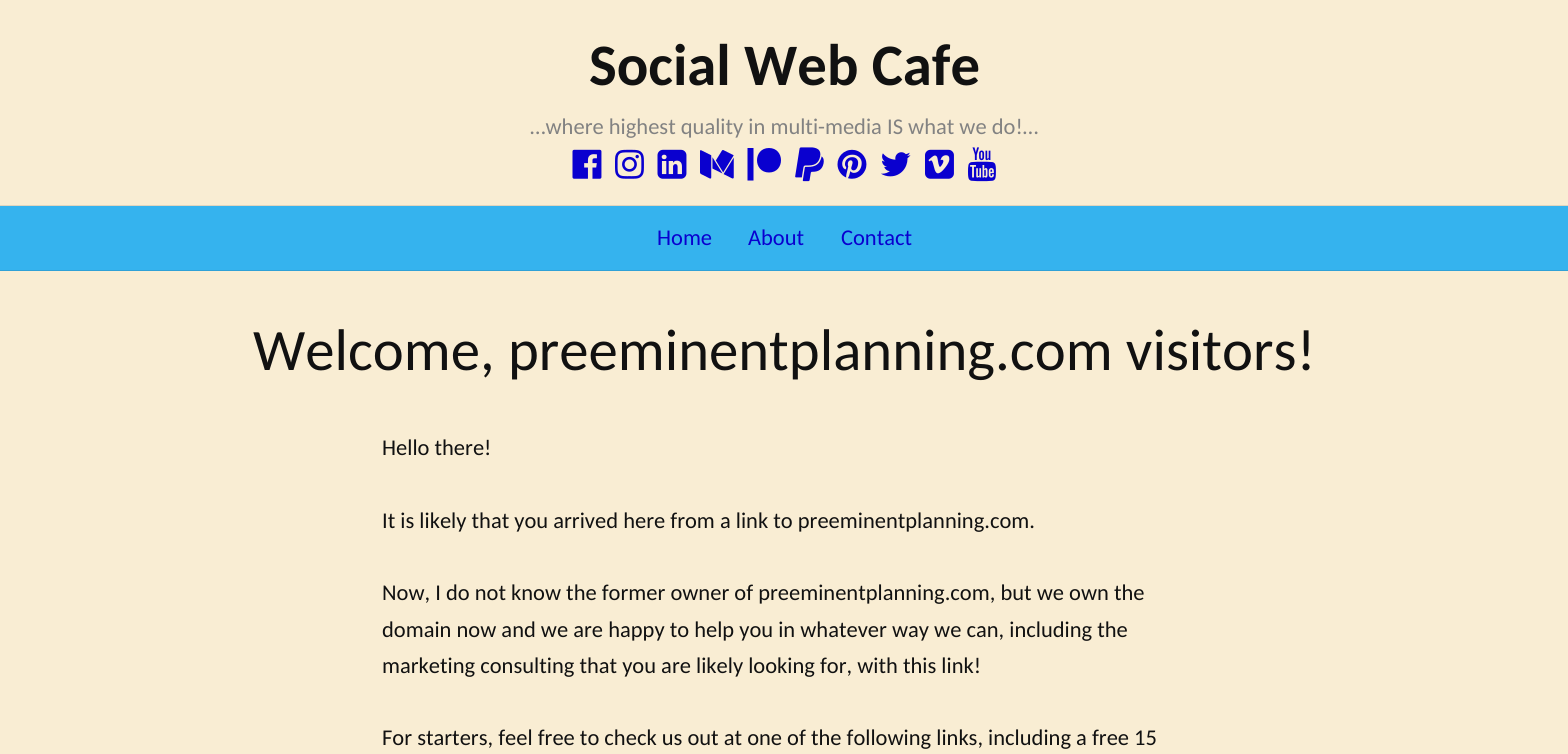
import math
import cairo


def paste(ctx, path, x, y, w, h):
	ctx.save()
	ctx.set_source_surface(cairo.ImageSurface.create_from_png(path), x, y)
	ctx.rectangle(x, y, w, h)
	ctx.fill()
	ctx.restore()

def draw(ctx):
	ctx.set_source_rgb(0.976, 0.929, 0.827)
	ctx.paint()
	ctx.set_source_rgb(0.878, 0.835, 0.745)
	ctx.rectangle(0, 205, 1568, 1)
	ctx.fill()
	ctx.select_font_face('Carlito', cairo.FONT_SLANT_NORMAL, cairo.FONT_WEIGHT_BOLD)
	ctx.set_font_size(58.75)
	ctx.set_source_rgb(0.067, 0.067, 0.067)
	ctx.move_to(589, 85)
	ctx.show_text('Social Web Cafe')
	ctx.select_font_face('Carlito')
	ctx.set_font_size(22.5)
	ctx.set_source_rgb(0.51, 0.51, 0.51)
	ctx.move_to(530, 134)
	ctx.show_text('…where highest quality in multi-media IS what we do!…')
	paste(ctx, 'media/1.png', 572, 149, 30, 30)
	paste(ctx, 'media/2.png', 615, 149, 29, 30)
	paste(ctx, 'media/3.png', 657, 149, 30, 30)
	paste(ctx, 'media/4.png', 700, 150, 34, 29)
	ctx.set_source_rgb(0.039, 0, 0.812)
	ctx.new_path()
	ctx.move_to(769, 148)
	ctx.curve_to(753, 148, 753, 172.5, 769, 172.5)
	ctx.curve_to(785, 172.5, 785, 148, 769, 148)
	ctx.close_path()
	ctx.move_to(747.5, 180.5)
	ctx.line_to(753.5, 180.5)
	ctx.line_to(753.5, 148)
	ctx.line_to(747.5, 148)
	ctx.close_path()
	ctx.fill()
	paste(ctx, 'media/5.png', 795, 147, 29, 35)
	paste(ctx, 'media/6.png', 837, 149, 30, 30)
	paste(ctx, 'media/7.png', 881, 152, 30, 25)
	paste(ctx, 'media/8.png', 925, 149, 29, 30)
	paste(ctx, 'media/9.png', 968, 147, 28, 35)
	ctx.set_source_rgb(0.208, 0.702, 0.933)
	ctx.rectangle(0, 206, 1568, 64)
	ctx.fill()
	ctx.set_source_rgb(0.188, 0.631, 0.839)
	ctx.rectangle(0, 270, 1568, 1)
	ctx.fill()
	ctx.set_source_rgb(0.039, 0, 0.812)
	for x, y, s in [
		(657, 245, 'Home'),
		(748, 245, 'About'),
		(841, 245, 'Contact'),
	]:
		ctx.move_to(x, y)
		ctx.show_text(s)
	ctx.set_font_size(58.75)
	ctx.set_source_rgb(0.067, 0.067, 0.067)
	ctx.move_to(253, 370)
	ctx.show_text('Welcome, preeminentplanning.com visitors!')
	ctx.set_font_size(22.5)
	for x, y, s in [
		(382, 455, 'Hello there!'),
		(382, 528, 'It is likely that you arrived here from a link to preeminentplanning.com.'),
		(382, 600, 'Now, I do not know the former owner of preeminentplanning.com, but we own the'),
		(382, 637, 'domain now and we are happy to help you in whatever way we can, including the'),
		(382, 673, 'marketing consulting that you are likely looking for, with this link!'),
		(382, 745, 'For starters, feel free to check us out at one of the following links, including a free 15'),
	]:
		ctx.move_to(x, y)
		ctx.show_text(s)


surface = cairo.ImageSurface(cairo.FORMAT_RGB24, 1568, 754)
ctx = cairo.Context(surface)
options = cairo.FontOptions()
options.set_hint_metrics(cairo.HINT_METRICS_OFF)
options.set_hint_style(cairo.HINT_STYLE_NONE)
ctx.set_font_options(options)
ctx.set_miter_limit(4)
draw(ctx)
surface.write_to_png('image.png')
